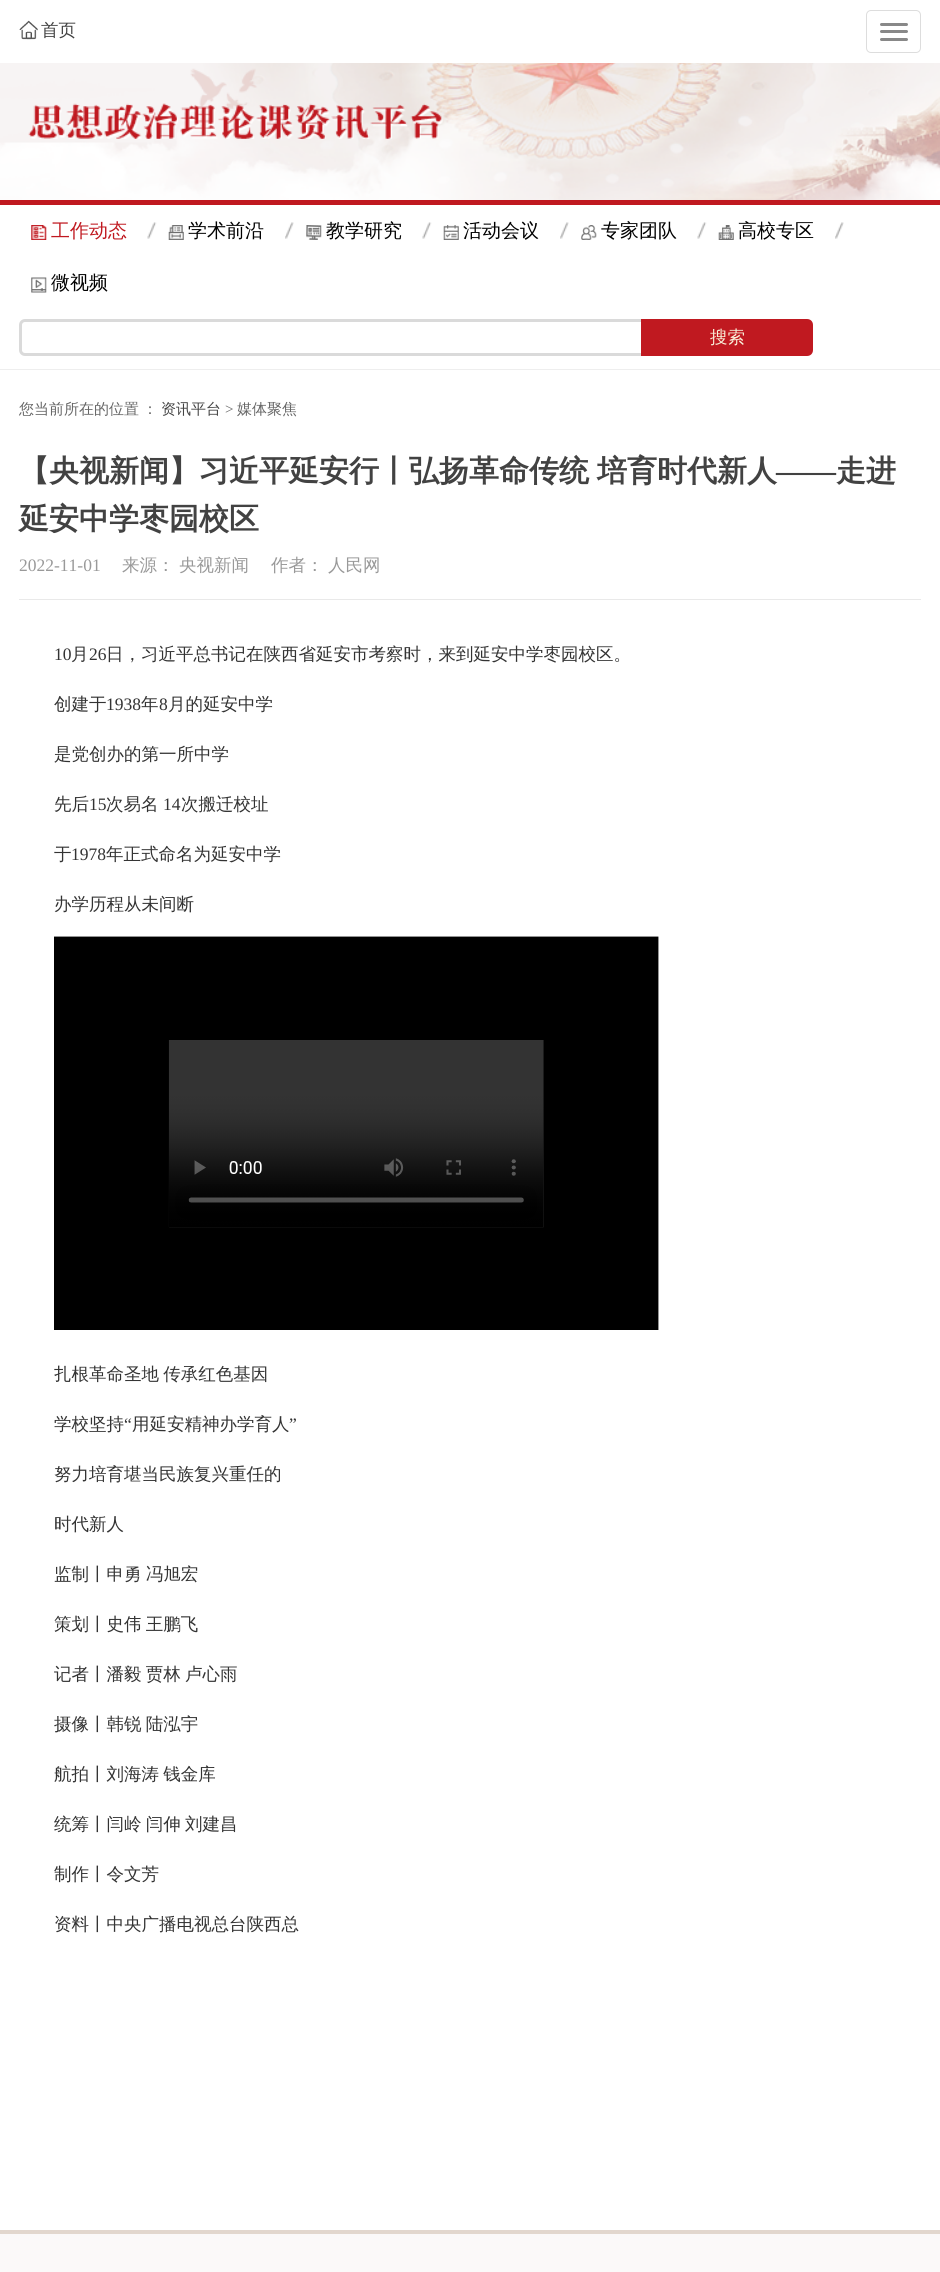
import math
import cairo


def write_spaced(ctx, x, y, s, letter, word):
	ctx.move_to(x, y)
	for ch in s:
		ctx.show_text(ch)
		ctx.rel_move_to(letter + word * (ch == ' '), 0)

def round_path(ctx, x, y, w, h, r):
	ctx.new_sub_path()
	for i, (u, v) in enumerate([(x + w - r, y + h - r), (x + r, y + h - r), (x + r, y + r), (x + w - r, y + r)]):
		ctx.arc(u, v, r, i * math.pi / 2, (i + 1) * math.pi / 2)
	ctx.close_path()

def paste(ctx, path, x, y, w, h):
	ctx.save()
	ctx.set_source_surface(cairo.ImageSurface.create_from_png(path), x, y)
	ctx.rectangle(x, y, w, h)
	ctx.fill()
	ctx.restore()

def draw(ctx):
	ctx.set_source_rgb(1, 1, 1)
	ctx.paint()
	paste(ctx, 'media/1.png', 19, 20, 19, 20)
	ctx.select_font_face('WenQuanYi Zen Hei Medium')
	ctx.set_font_size(17.5)
	ctx.set_source_rgb(0.259, 0.259, 0.259)
	ctx.move_to(41, 36)
	ctx.show_text('首页')
	round_path(ctx, 866.5, 10.5, 54, 42, 4.5)
	ctx.set_source_rgb(0.867, 0.867, 0.867)
	ctx.set_line_width(1)
	ctx.stroke()
	ctx.set_source_rgb(0.533, 0.533, 0.533)
	round_path(ctx, 880, 23, 28, 3, 1.5)
	ctx.fill()
	round_path(ctx, 880, 30, 28, 3, 1.5)
	ctx.fill()
	round_path(ctx, 880, 38, 28, 3, 1.5)
	ctx.fill()
	paste(ctx, 'media/2.png', 0, 63, 940, 137)
	ctx.set_source_rgb(0.753, 0.098, 0.125)
	ctx.rectangle(0, 200, 940, 5)
	ctx.fill()
	paste(ctx, 'media/3.png', 28, 103, 415, 36)
	ctx.set_source_rgb(0.933, 0.933, 0.933)
	ctx.rectangle(0, 369, 940, 1)
	ctx.fill()
	paste(ctx, 'media/4.png', 147, 222, 10, 17)
	paste(ctx, 'media/5.png', 31, 225, 16, 15)
	ctx.set_font_size(19)
	ctx.set_source_rgb(0.753, 0.098, 0.125)
	ctx.move_to(51, 237)
	ctx.show_text('工作动态')
	paste(ctx, 'media/6.png', 285, 222, 9, 17)
	paste(ctx, 'media/7.png', 168, 225, 16, 15)
	ctx.set_source_rgb(0, 0, 0)
	ctx.move_to(188, 237)
	ctx.show_text('学术前沿')
	paste(ctx, 'media/4.png', 422, 222, 10, 17)
	paste(ctx, 'media/8.png', 306, 225, 16, 15)
	ctx.move_to(326, 237)
	ctx.show_text('教学研究')
	paste(ctx, 'media/6.png', 560, 222, 9, 17)
	paste(ctx, 'media/9.png', 443, 225, 16, 15)
	ctx.move_to(463, 237)
	ctx.show_text('活动会议')
	paste(ctx, 'media/4.png', 697, 222, 10, 17)
	paste(ctx, 'media/10.png', 581, 225, 16, 15)
	ctx.move_to(601, 237)
	ctx.show_text('专家团队')
	paste(ctx, 'media/6.png', 835, 222, 9, 17)
	paste(ctx, 'media/11.png', 718, 225, 16, 15)
	ctx.move_to(738, 237)
	ctx.show_text('高校专区')
	paste(ctx, 'media/12.png', 31, 277, 16, 16)
	ctx.move_to(51, 289)
	ctx.show_text('微视频')
	round_path(ctx, 20.5, 320.5, 628, 34, 4.5)
	ctx.set_source_rgb(0.855, 0.855, 0.855)
	ctx.set_line_width(3)
	ctx.stroke()
	ctx.set_source_rgb(0.753, 0.098, 0.125)
	ctx.new_path()
	ctx.move_to(641, 319)
	ctx.line_to(807, 319)
	ctx.curve_to(810.5, 319, 813, 321.5, 813, 325)
	ctx.line_to(813, 350)
	ctx.curve_to(813, 353.5, 810.5, 356, 807, 356)
	ctx.line_to(641, 356)
	ctx.close_path()
	ctx.fill()
	ctx.set_font_size(17.5)
	ctx.set_source_rgb(0.976, 0.941, 0.855)
	ctx.move_to(710, 343)
	ctx.show_text('搜索')
	ctx.set_font_size(15)
	ctx.set_source_rgb(0.4, 0.4, 0.4)
	write_spaced(ctx, 19, 414, '您当前所在的位置 ：', 0, -1)
	ctx.set_source_rgb(0.259, 0.259, 0.259)
	ctx.move_to(161, 414)
	ctx.show_text('资讯平台')
	ctx.select_font_face('Liberation Serif')
	ctx.set_source_rgb(0.4, 0.4, 0.4)
	ctx.move_to(225, 414)
	ctx.show_text('>')
	ctx.select_font_face('WenQuanYi Zen Hei Medium')
	ctx.move_to(237, 414)
	ctx.show_text('媒体聚焦')
	ctx.set_source_rgb(0.914, 0.914, 0.914)
	ctx.rectangle(19, 599, 902, 1)
	ctx.fill()
	ctx.select_font_face('WenQuanYi Zen Hei', cairo.FONT_SLANT_NORMAL, cairo.FONT_WEIGHT_BOLD)
	ctx.set_font_size(30)
	ctx.set_source_rgb(0.259, 0.259, 0.259)
	write_spaced(ctx, 19, 481, '【央视新闻】习近平延安行丨弘扬革命传统 培育时代新人', 0, -1)
	ctx.select_font_face('Liberation Serif', cairo.FONT_SLANT_NORMAL, cairo.FONT_WEIGHT_BOLD)
	ctx.move_to(776, 481)
	ctx.show_text('——')
	ctx.select_font_face('WenQuanYi Zen Hei', cairo.FONT_SLANT_NORMAL, cairo.FONT_WEIGHT_BOLD)
	ctx.move_to(836, 481)
	ctx.show_text('走进')
	ctx.move_to(19, 529)
	ctx.show_text('延安中学枣园校区')
	ctx.select_font_face('Liberation Serif')
	ctx.set_font_size(17.5)
	ctx.set_source_rgb(0.6, 0.6, 0.6)
	ctx.move_to(19, 571)
	ctx.show_text('2022-11-01')
	ctx.select_font_face('WenQuanYi Zen Hei Medium')
	for x, y, s in [
		(122, 571, '来源：'),
		(179, 571, '央视新闻'),
		(271, 571, '作者：'),
		(328, 571, '人民网'),
	]:
		ctx.move_to(x, y)
		ctx.show_text(s)
	ctx.select_font_face('Liberation Serif')
	ctx.set_source_rgb(0.2, 0.2, 0.2)
	ctx.move_to(54, 660)
	ctx.show_text('10')
	ctx.select_font_face('WenQuanYi Zen Hei Medium')
	ctx.move_to(71, 660)
	ctx.show_text('月')
	ctx.select_font_face('Liberation Serif')
	ctx.move_to(89, 660)
	ctx.show_text('26')
	ctx.select_font_face('WenQuanYi Zen Hei Medium')
	ctx.move_to(106, 660)
	ctx.show_text('日，习近平总书记在陕西省延安市考察时，来到延安中学枣园校区。')
	ctx.move_to(54, 710)
	ctx.show_text('创建于')
	ctx.select_font_face('Liberation Serif')
	ctx.move_to(106, 710)
	ctx.show_text('1938')
	ctx.select_font_face('WenQuanYi Zen Hei Medium')
	ctx.move_to(141, 710)
	ctx.show_text('年')
	ctx.select_font_face('Liberation Serif')
	ctx.move_to(159, 710)
	ctx.show_text('8')
	ctx.select_font_face('WenQuanYi Zen Hei Medium')
	for x, y, s in [
		(168, 710, '月的延安中学'),
		(54, 760, '是党创办的第一所中学'),
		(54, 810, '先后'),
	]:
		ctx.move_to(x, y)
		ctx.show_text(s)
	ctx.select_font_face('Liberation Serif')
	ctx.move_to(89, 810)
	ctx.show_text('15')
	ctx.select_font_face('WenQuanYi Zen Hei Medium')
	ctx.move_to(106, 810)
	ctx.show_text('次易名')
	ctx.select_font_face('Liberation Serif')
	ctx.move_to(163, 810)
	ctx.show_text('14')
	ctx.select_font_face('WenQuanYi Zen Hei Medium')
	ctx.move_to(181, 810)
	ctx.show_text('次搬迁校址')
	ctx.move_to(54, 860)
	ctx.show_text('于')
	ctx.select_font_face('Liberation Serif')
	ctx.move_to(71, 860)
	ctx.show_text('1978')
	ctx.select_font_face('WenQuanYi Zen Hei Medium')
	ctx.move_to(106, 860)
	ctx.show_text('年正式命名为延安中学')
	ctx.move_to(54, 910)
	ctx.show_text('办学历程从未间断')
	paste(ctx, 'media/13.png', 54, 936, 605, 394)
	write_spaced(ctx, 54, 1380, '扎根革命圣地 传承红色基因', 0, -1)
	ctx.move_to(54, 1430)
	ctx.show_text('学校坚持')
	ctx.select_font_face('Liberation Serif')
	ctx.move_to(124, 1430)
	ctx.show_text('“')
	ctx.select_font_face('WenQuanYi Zen Hei Medium')
	ctx.move_to(132, 1430)
	ctx.show_text('用延安精神办学育人')
	ctx.select_font_face('Liberation Serif')
	ctx.move_to(289, 1430)
	ctx.show_text('”')
	ctx.select_font_face('WenQuanYi Zen Hei Medium')
	ctx.move_to(54, 1480)
	ctx.show_text('努力培育堪当民族复兴重任的')
	ctx.move_to(54, 1530)
	ctx.show_text('时代新人')
	for x, y, s in [
		(54, 1580, '监制丨申勇 冯旭宏'),
		(54, 1630, '策划丨史伟 王鹏飞'),
		(54, 1680, '记者丨潘毅 贾林 卢心雨'),
		(54, 1730, '摄像丨韩锐 陆泓宇'),
		(54, 1780, '航拍丨刘海涛 钱金库'),
		(54, 1830, '统筹丨闫岭 闫伸 刘建昌'),
	]:
		write_spaced(ctx, x, y, s, 0, -1)
	ctx.move_to(54, 1880)
	ctx.show_text('制作丨令文芳')
	ctx.move_to(54, 1930)
	ctx.show_text('资料丨中央广播电视总台陕西总')
	ctx.set_source_rgb(0.886, 0.843, 0.808)
	ctx.rectangle(0, 2230, 940, 4)
	ctx.fill()
	ctx.set_source_rgb(0.984, 0.976, 0.973)
	ctx.rectangle(0, 2234, 940, 38)
	ctx.fill()


surface = cairo.ImageSurface(cairo.FORMAT_RGB24, 940, 2272)
ctx = cairo.Context(surface)
options = cairo.FontOptions()
options.set_hint_metrics(cairo.HINT_METRICS_OFF)
options.set_hint_style(cairo.HINT_STYLE_NONE)
ctx.set_font_options(options)
ctx.set_miter_limit(4)
draw(ctx)
surface.write_to_png('image.png')
